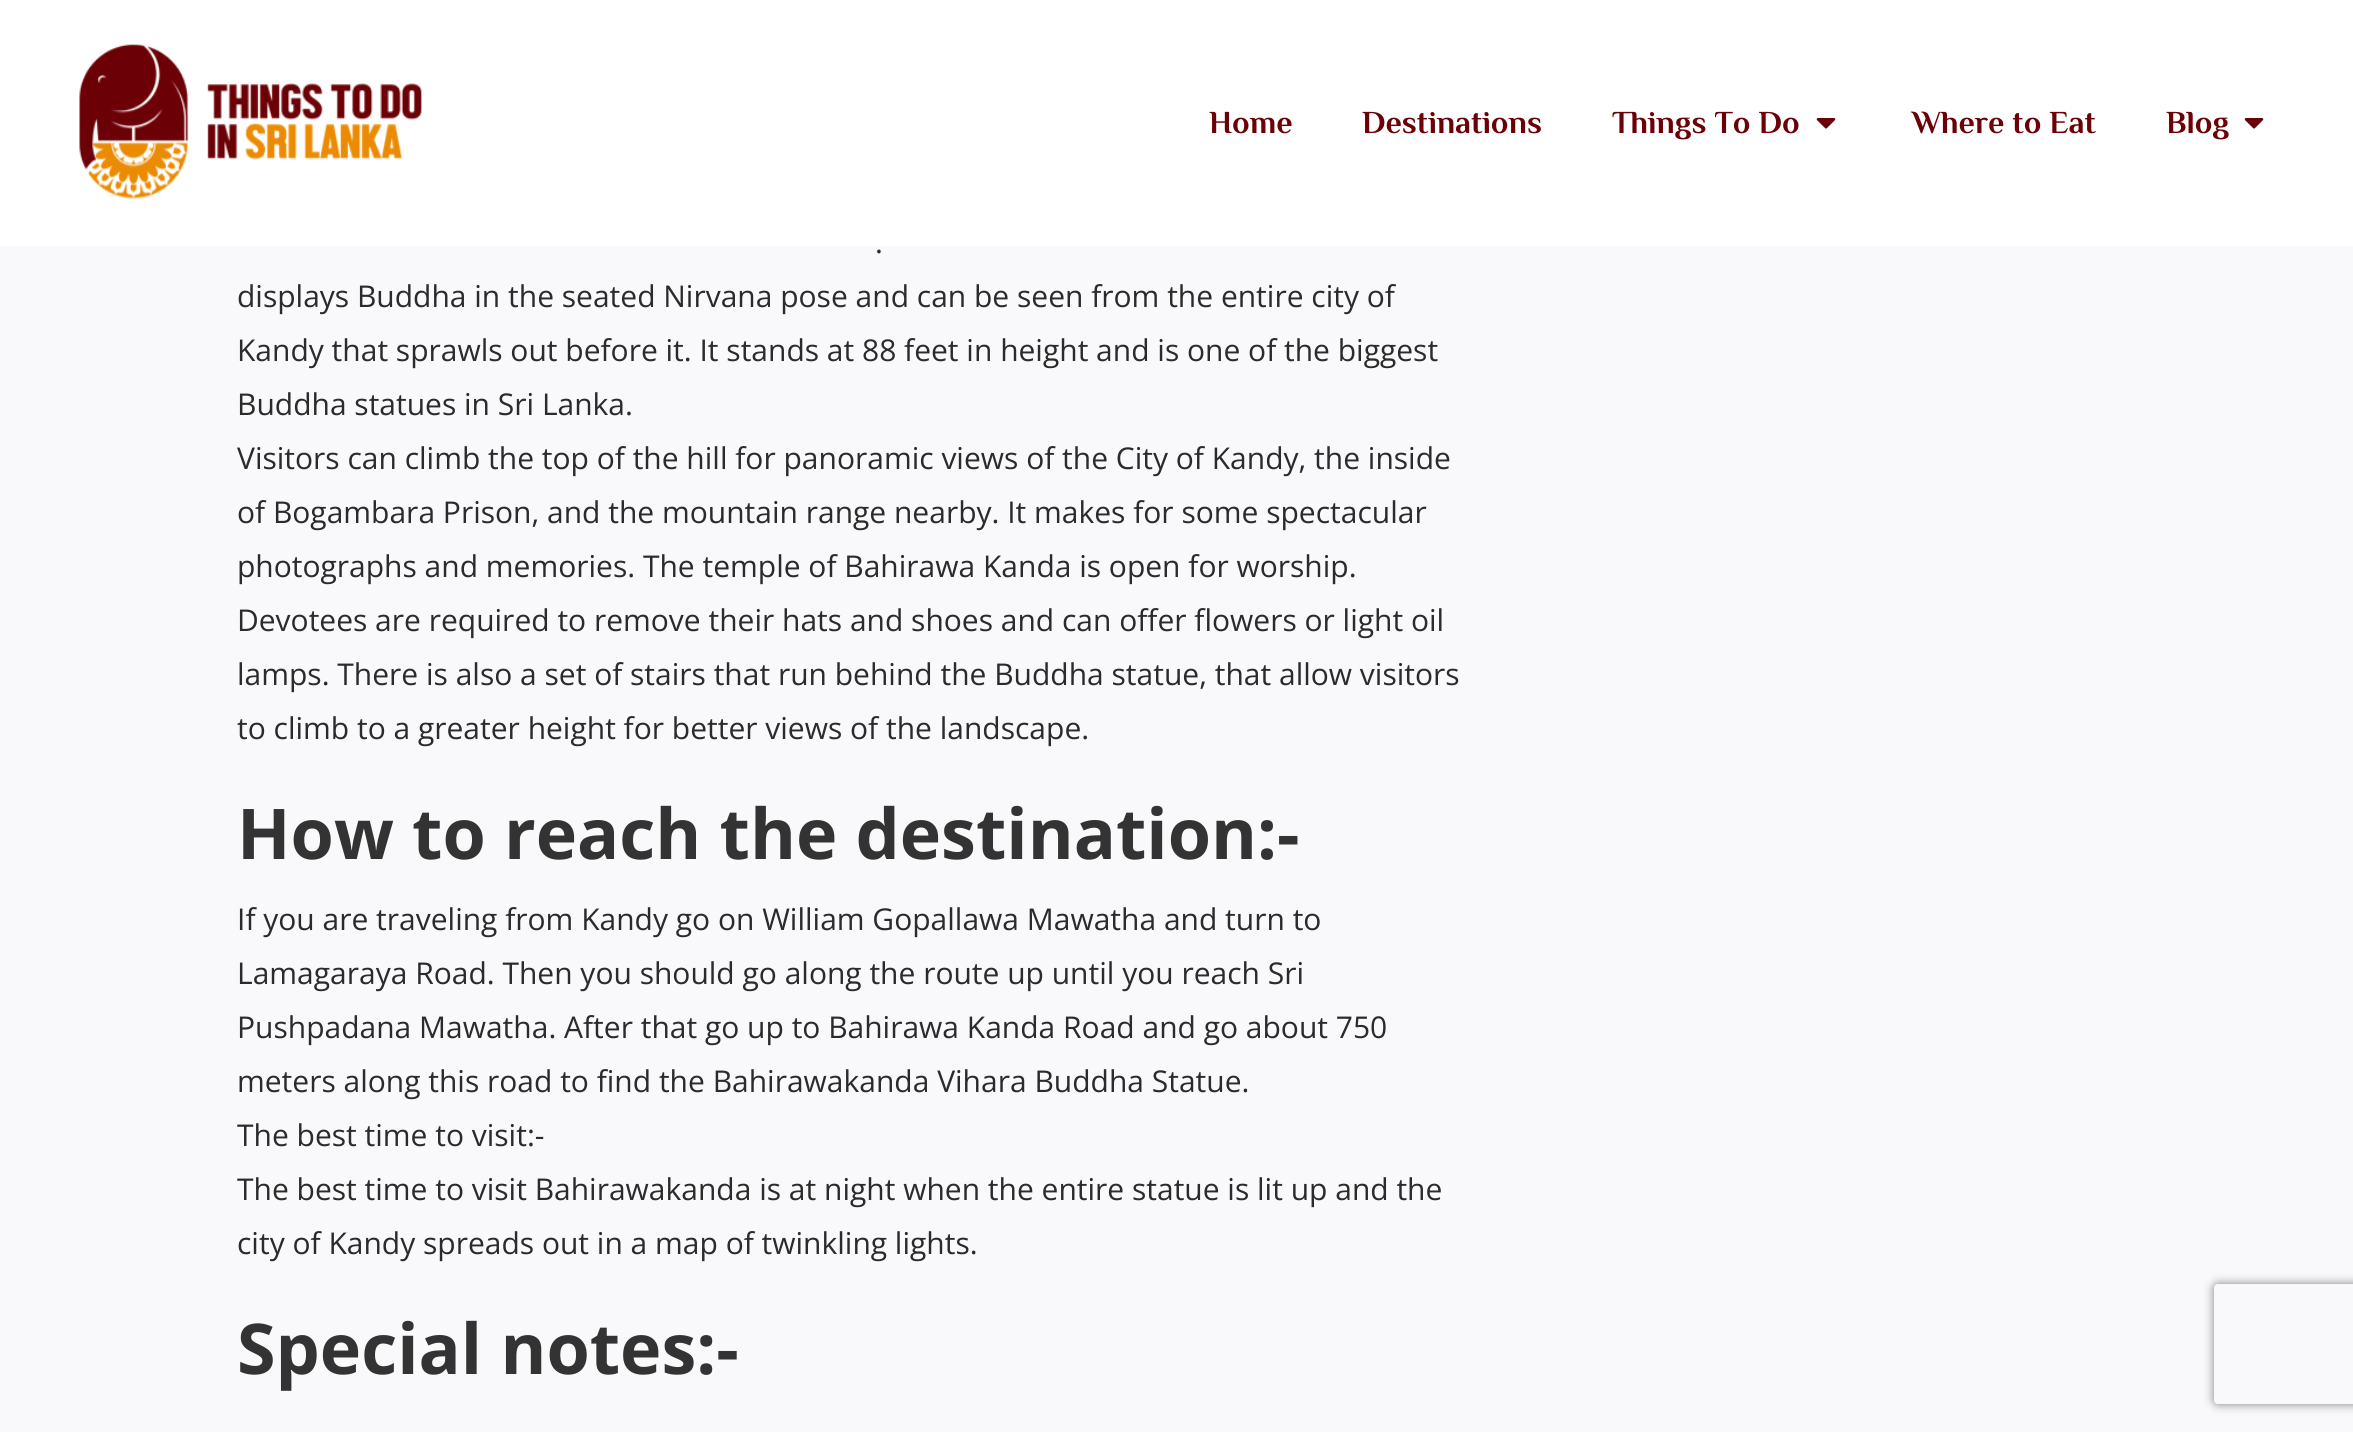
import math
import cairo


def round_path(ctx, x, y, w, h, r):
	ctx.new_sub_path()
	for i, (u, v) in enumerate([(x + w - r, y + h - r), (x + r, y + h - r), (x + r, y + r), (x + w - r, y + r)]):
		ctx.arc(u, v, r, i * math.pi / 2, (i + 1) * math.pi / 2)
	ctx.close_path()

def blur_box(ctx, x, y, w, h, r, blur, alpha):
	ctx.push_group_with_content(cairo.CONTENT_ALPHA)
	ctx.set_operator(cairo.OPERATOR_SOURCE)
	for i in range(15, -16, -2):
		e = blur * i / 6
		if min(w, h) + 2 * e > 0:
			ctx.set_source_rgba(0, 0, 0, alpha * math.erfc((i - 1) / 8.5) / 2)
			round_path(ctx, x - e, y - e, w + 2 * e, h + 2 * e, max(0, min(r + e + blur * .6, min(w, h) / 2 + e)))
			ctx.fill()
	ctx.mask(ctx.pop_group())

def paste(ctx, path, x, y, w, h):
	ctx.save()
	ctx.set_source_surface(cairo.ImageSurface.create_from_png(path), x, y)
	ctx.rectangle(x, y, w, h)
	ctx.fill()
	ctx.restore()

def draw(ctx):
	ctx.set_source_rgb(0.976, 0.976, 0.984)
	ctx.paint()
	ctx.set_source_rgb(1, 1, 1)
	ctx.rectangle(0, 0, 2353, 246)
	ctx.fill()
	paste(ctx, 'media/1.png', 79, 44, 343, 155)
	ctx.select_font_face('Philosopher', cairo.FONT_SLANT_NORMAL, cairo.FONT_WEIGHT_BOLD)
	ctx.set_font_size(32)
	ctx.set_source_rgb(0.42, 0.004, 0.027)
	for x, y, s in [
		(1209, 133, 'Home'),
		(1362, 133, 'Destinations'),
		(1612, 133, 'Things To Do'),
	]:
		ctx.move_to(x, y)
		ctx.show_text(s)
	paste(ctx, 'media/2.png', 1816, 118, 20, 11)
	ctx.move_to(1912, 133)
	ctx.show_text('Where to Eat')
	ctx.move_to(2166, 133)
	ctx.show_text('Blog')
	paste(ctx, 'media/2.png', 2244, 118, 20, 11)
	ctx.select_font_face('Open Sans')
	ctx.set_font_size(30)
	ctx.set_source_rgb(0.169, 0.169, 0.169)
	for x, y, s in [
		(875, 253, '.'),
		(237, 307, 'displays Buddha in the seated Nirvana pose and can be seen from the entire city of'),
		(237, 361, 'Kandy that sprawls out before it. It stands at 88 feet in height and is one of the biggest'),
		(237, 415, 'Buddha statues in Sri Lanka.'),
		(237, 469, 'Visitors can climb the top of the hill for panoramic views of the City of Kandy, the inside'),
		(237, 523, 'of Bogambara Prison, and the mountain range nearby. It makes for some spectacular'),
		(237, 577, 'photographs and memories. The temple of Bahirawa Kanda is open for worship.'),
		(237, 631, 'Devotees are required to remove their hats and shoes and can offer flowers or light oil'),
		(237, 685, 'lamps. There is also a set of stairs that run behind the Buddha statue, that allow visitors'),
		(237, 739, 'to climb to a greater height for better views of the landscape.'),
	]:
		ctx.move_to(x, y)
		ctx.show_text(s)
	ctx.select_font_face('Open Sans', cairo.FONT_SLANT_NORMAL, cairo.FONT_WEIGHT_BOLD)
	ctx.set_font_size(70)
	ctx.set_source_rgb(0.2, 0.2, 0.2)
	ctx.move_to(237, 859)
	ctx.show_text('How to reach the destination:-')
	ctx.select_font_face('Open Sans')
	ctx.set_font_size(30)
	ctx.set_source_rgb(0.169, 0.169, 0.169)
	for x, y, s in [
		(237, 930, 'If you are traveling from Kandy go on William Gopallawa Mawatha and turn to'),
		(237, 984, 'Lamagaraya Road. Then you should go along the route up until you reach Sri'),
		(237, 1038, 'Pushpadana Mawatha. After that go up to Bahirawa Kanda Road and go about 750'),
		(237, 1092, 'meters along this road to find the Bahirawakanda Vihara Buddha Statue.'),
		(237, 1146, 'The best time to visit:-'),
		(237, 1200, 'The best time to visit Bahirawakanda is at night when the entire statue is lit up and the'),
		(237, 1254, 'city of Kandy spreads out in a map of twinkling lights.'),
	]:
		ctx.move_to(x, y)
		ctx.show_text(s)
	ctx.select_font_face('Open Sans', cairo.FONT_SLANT_NORMAL, cairo.FONT_WEIGHT_BOLD)
	ctx.set_font_size(70)
	ctx.set_source_rgb(0.2, 0.2, 0.2)
	ctx.move_to(237, 1374)
	ctx.show_text('Special notes:-')
	ctx.save()
	ctx.set_fill_rule(cairo.FILL_RULE_EVEN_ODD)
	ctx.new_path()
	ctx.move_to(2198, 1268)
	ctx.line_to(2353, 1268)
	ctx.line_to(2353, 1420)
	ctx.line_to(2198, 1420)
	ctx.close_path()
	ctx.move_to(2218, 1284)
	ctx.line_to(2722, 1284)
	ctx.curve_to(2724, 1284, 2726, 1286, 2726, 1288)
	ctx.line_to(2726, 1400)
	ctx.curve_to(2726, 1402, 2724, 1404, 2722, 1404)
	ctx.line_to(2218, 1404)
	ctx.curve_to(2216, 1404, 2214, 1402, 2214, 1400)
	ctx.line_to(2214, 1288)
	ctx.curve_to(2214, 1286, 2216, 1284, 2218, 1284)
	ctx.close_path()
	ctx.clip()
	ctx.set_source_rgb(0.502, 0.502, 0.502)
	blur_box(ctx, 2214, 1284, 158, 120, 4, 5, 1)
	ctx.restore()


surface = cairo.ImageSurface(cairo.FORMAT_RGB24, 2353, 1432)
ctx = cairo.Context(surface)
options = cairo.FontOptions()
options.set_hint_metrics(cairo.HINT_METRICS_OFF)
options.set_hint_style(cairo.HINT_STYLE_NONE)
ctx.set_font_options(options)
ctx.set_miter_limit(4)
draw(ctx)
surface.write_to_png('image.png')
